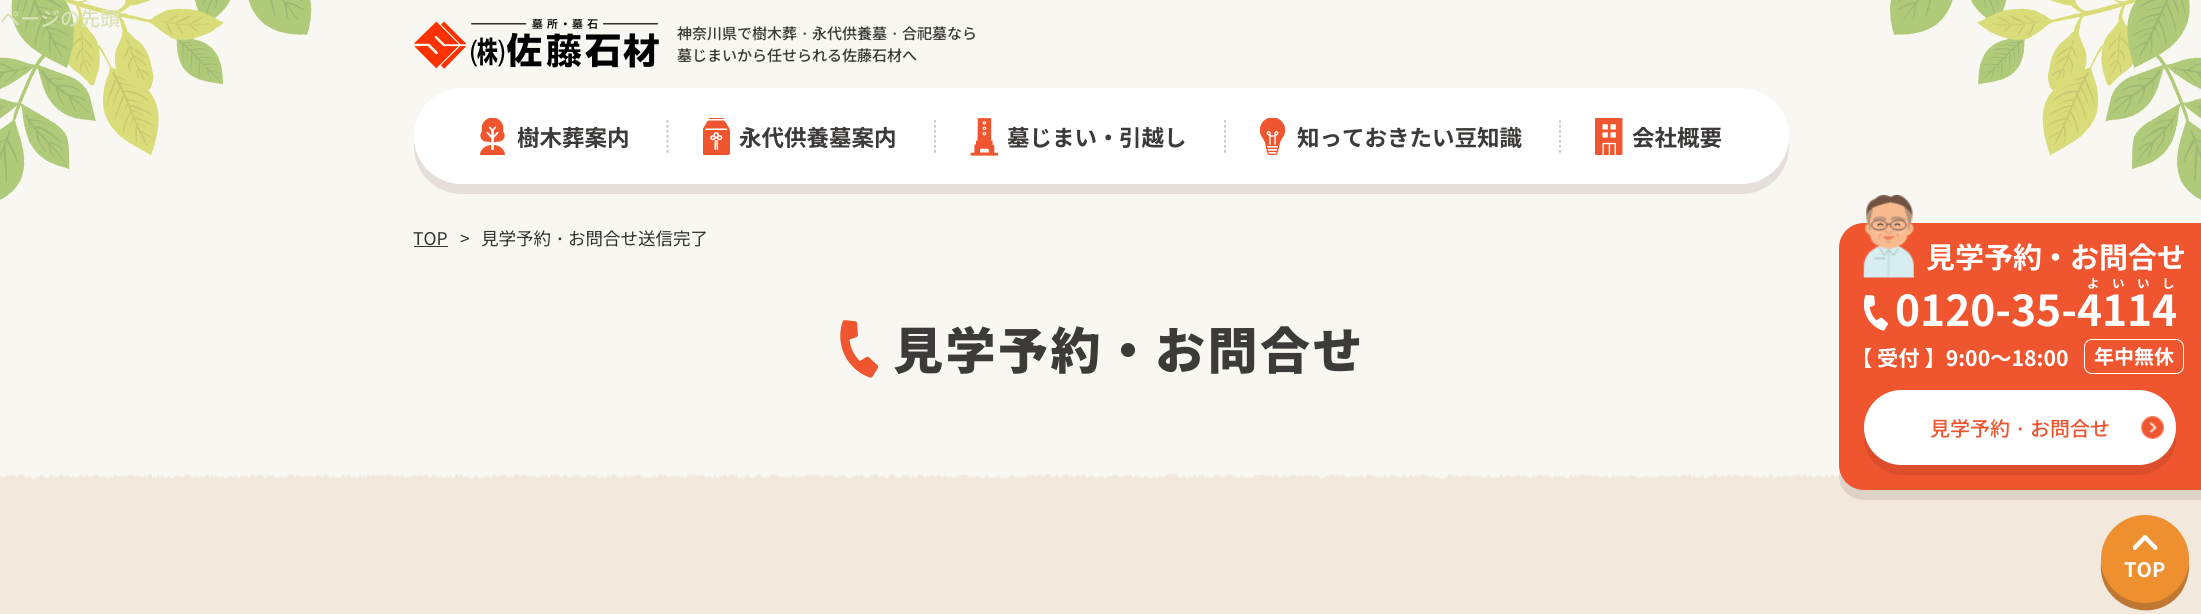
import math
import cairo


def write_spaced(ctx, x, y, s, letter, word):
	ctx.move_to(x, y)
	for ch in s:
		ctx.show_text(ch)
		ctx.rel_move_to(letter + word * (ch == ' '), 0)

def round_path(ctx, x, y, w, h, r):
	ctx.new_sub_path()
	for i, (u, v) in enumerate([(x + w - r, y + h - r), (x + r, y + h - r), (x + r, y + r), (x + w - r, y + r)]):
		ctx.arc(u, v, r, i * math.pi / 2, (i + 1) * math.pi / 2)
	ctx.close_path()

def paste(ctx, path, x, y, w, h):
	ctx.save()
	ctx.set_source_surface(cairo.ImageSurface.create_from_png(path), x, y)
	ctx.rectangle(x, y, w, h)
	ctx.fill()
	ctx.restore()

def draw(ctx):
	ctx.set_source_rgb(0.976, 0.965, 0.949)
	ctx.paint()
	paste(ctx, 'media/1.png', 0, 0, 2201, 200)
	ctx.select_font_face('Noto Sans JP Medium')
	ctx.set_font_size(20)
	ctx.set_source_rgb(0.851, 0.886, 0.718)
	ctx.move_to(0, 26)
	ctx.show_text('ページの先頭')
	paste(ctx, 'media/2.png', 414, 19, 245, 50)
	ctx.set_font_size(15)
	ctx.set_source_rgb(0.243, 0.227, 0.224)
	ctx.move_to(677, 39)
	ctx.show_text('神奈川県で樹木葬')
	ctx.select_font_face('WenQuanYi Zen Hei Medium')
	ctx.move_to(797, 39)
	ctx.show_text('・')
	ctx.select_font_face('Noto Sans JP Medium')
	ctx.move_to(812, 39)
	ctx.show_text('永代供養墓')
	ctx.select_font_face('WenQuanYi Zen Hei Medium')
	ctx.move_to(887, 39)
	ctx.show_text('・')
	ctx.select_font_face('Noto Sans JP Medium')
	ctx.move_to(902, 39)
	ctx.show_text('合祀墓なら')
	ctx.move_to(677, 61)
	ctx.show_text('墓じまいから任せられる佐藤石材へ')
	ctx.set_source_rgb(0.898, 0.871, 0.855)
	ctx.new_path()
	ctx.move_to(414, 142)
	ctx.line_to(414, 146)
	ctx.curve_to(414, 173, 435, 194, 462, 194)
	ctx.line_to(1741, 194)
	ctx.curve_to(1768, 194, 1789, 173, 1789, 146)
	ctx.line_to(1789, 140)
	ctx.curve_to(1787, 164, 1766, 184, 1741, 184)
	ctx.line_to(462, 184)
	ctx.curve_to(437, 184, 417, 166, 414, 142)
	ctx.close_path()
	ctx.fill()
	ctx.set_source_rgb(1, 1, 1)
	round_path(ctx, 414, 88, 1375, 96, 48)
	ctx.fill()
	paste(ctx, 'media/3.png', 480, 118, 25, 37)
	ctx.select_font_face('Noto Sans JP', cairo.FONT_SLANT_NORMAL, cairo.FONT_WEIGHT_BOLD)
	ctx.set_font_size(22.5)
	ctx.set_source_rgb(0.243, 0.227, 0.224)
	ctx.move_to(517, 146)
	ctx.show_text('樹木葬案内')
	paste(ctx, 'media/4.png', 666, 119, 3, 34)
	paste(ctx, 'media/5.png', 703, 118, 27, 37)
	ctx.move_to(739, 146)
	ctx.show_text('永代供養墓案内')
	paste(ctx, 'media/6.png', 934, 119, 2, 34)
	paste(ctx, 'media/7.png', 970, 118, 29, 38)
	ctx.move_to(1007, 146)
	ctx.show_text('墓じまい')
	ctx.select_font_face('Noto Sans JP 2', cairo.FONT_SLANT_NORMAL, cairo.FONT_WEIGHT_BOLD)
	ctx.move_to(1097, 146)
	ctx.show_text('・')
	ctx.select_font_face('Noto Sans JP', cairo.FONT_SLANT_NORMAL, cairo.FONT_WEIGHT_BOLD)
	ctx.move_to(1119, 146)
	ctx.show_text('引越し')
	paste(ctx, 'media/6.png', 1224, 119, 2, 34)
	paste(ctx, 'media/8.png', 1260, 118, 25, 37)
	ctx.move_to(1297, 146)
	ctx.show_text('知っておきたい豆知識')
	paste(ctx, 'media/6.png', 1559, 119, 2, 34)
	paste(ctx, 'media/9.png', 1595, 118, 28, 37)
	ctx.move_to(1632, 146)
	ctx.show_text('会社概要')
	ctx.select_font_face('Noto Sans JP')
	ctx.set_font_size(17.5)
	ctx.set_source_rgb(0.2, 0.2, 0.2)
	ctx.move_to(413, 245)
	ctx.show_text('TOP')
	ctx.rectangle(414, 246, 34, 1)
	ctx.fill()
	ctx.move_to(460, 245)
	ctx.show_text('>')
	ctx.move_to(481, 245)
	ctx.show_text('見学予約')
	ctx.select_font_face('WenQuanYi Zen Hei Medium')
	ctx.move_to(551, 245)
	ctx.show_text('・')
	ctx.select_font_face('Noto Sans JP')
	ctx.move_to(568, 245)
	ctx.show_text('お問合せ送信完了')
	paste(ctx, 'media/10.png', 840, 320, 39, 58)
	ctx.select_font_face('Noto Sans JP Black')
	ctx.set_font_size(50)
	ctx.set_source_rgb(0.243, 0.227, 0.224)
	write_spaced(ctx, 893, 369, '見学予約', 2.5, 0)
	ctx.select_font_face('Noto Sans JP 2 Black')
	write_spaced(ctx, 1103, 369, '・', 2.5, 0)
	ctx.select_font_face('Noto Sans JP Black')
	write_spaced(ctx, 1155, 369, 'お問合せ', 2.5, 0)
	ctx.set_source_rgb(0.949, 0.91, 0.863)
	ctx.rectangle(0, 485, 2201, 129)
	ctx.fill()
	paste(ctx, 'media/14.png', 0, 473, 1849, 12)
	ctx.set_source_rgba(0.188, 0.035, 0, 0.1)
	ctx.new_path()
	ctx.move_to(1839, 469)
	ctx.line_to(1839, 475)
	ctx.curve_to(1839, 489, 1850, 500, 1864, 500)
	ctx.line_to(2201, 500)
	ctx.line_to(2201, 490)
	ctx.line_to(1864, 490)
	ctx.curve_to(1851, 490, 1841, 481, 1839, 469)
	ctx.close_path()
	ctx.fill()
	ctx.set_source_rgb(0.937, 0.337, 0.188)
	ctx.new_path()
	ctx.move_to(1864, 223)
	ctx.line_to(2201, 223)
	ctx.line_to(2201, 490)
	ctx.line_to(1864, 490)
	ctx.curve_to(1850, 490, 1839, 479, 1839, 465)
	ctx.line_to(1839, 248)
	ctx.curve_to(1839, 234, 1850, 223, 1864, 223)
	ctx.close_path()
	ctx.fill()
	paste(ctx, 'media/11.png', 1863, 195, 51, 83)
	ctx.select_font_face('Noto Sans JP', cairo.FONT_SLANT_NORMAL, cairo.FONT_WEIGHT_BOLD)
	ctx.set_font_size(29)
	ctx.set_source_rgb(1, 1, 1)
	ctx.move_to(1926, 268)
	ctx.show_text('見学予約')
	ctx.select_font_face('Noto Sans JP 2', cairo.FONT_SLANT_NORMAL, cairo.FONT_WEIGHT_BOLD)
	ctx.move_to(2041, 268)
	ctx.show_text('・')
	ctx.select_font_face('Noto Sans JP', cairo.FONT_SLANT_NORMAL, cairo.FONT_WEIGHT_BOLD)
	ctx.move_to(2070, 268)
	ctx.show_text('お問合せ')
	paste(ctx, 'media/12.png', 1864, 294, 24, 37)
	ctx.set_font_size(12.5)
	write_spaced(ctx, 2087, 288, 'よいいし', 12.5, 0)
	ctx.set_font_size(42.5)
	ctx.move_to(1895, 326)
	ctx.show_text('0120-35-4114')
	ctx.set_font_size(21.25)
	ctx.move_to(1851, 366)
	ctx.show_text('【 受付 】9:00～18:00')
	round_path(ctx, 2084.5, 339.5, 99, 34, 7.5)
	ctx.set_line_width(1)
	ctx.stroke()
	ctx.set_font_size(20)
	ctx.move_to(2094, 364)
	ctx.show_text('年中無休')
	ctx.set_source_rgb(0.863, 0.306, 0.169)
	ctx.new_path()
	ctx.move_to(1864, 433)
	ctx.line_to(1864, 438)
	ctx.curve_to(1864, 458, 1881, 475, 1902, 475)
	ctx.line_to(2138, 475)
	ctx.curve_to(2159, 475, 2176, 458, 2176, 438)
	ctx.line_to(2176, 433)
	ctx.curve_to(2173, 451, 2157, 465, 2139, 465)
	ctx.line_to(1901, 465)
	ctx.curve_to(1883, 465, 1867, 451, 1864, 433)
	ctx.close_path()
	ctx.fill()
	ctx.set_source_rgb(1, 1, 1)
	round_path(ctx, 1864, 390, 312, 75, 37.5)
	ctx.fill()
	paste(ctx, 'media/13.png', 2140, 416, 24, 23)
	ctx.select_font_face('Noto Sans JP Medium')
	ctx.set_source_rgb(0.937, 0.337, 0.188)
	ctx.move_to(1930, 436)
	ctx.show_text('見学予約')
	ctx.select_font_face('WenQuanYi Zen Hei Medium')
	ctx.move_to(2010, 436)
	ctx.show_text('・')
	ctx.select_font_face('Noto Sans JP Medium')
	ctx.move_to(2030, 436)
	ctx.show_text('お問合せ')
	ctx.set_source_rgb(0.749, 0.471, 0.192)
	ctx.new_path()
	ctx.move_to(2101, 561)
	ctx.curve_to(2096, 607, 2156, 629, 2182, 591)
	ctx.curve_to(2187, 582, 2190, 572, 2189, 561)
	ctx.curve_to(2187, 584, 2168, 602, 2145, 602)
	ctx.curve_to(2122, 602, 2103, 584, 2101, 561)
	ctx.close_path()
	ctx.fill()
	ctx.set_source_rgb(0.937, 0.565, 0.188)
	ctx.arc(2145, 559, 44, 0, 2 * math.pi)
	ctx.fill()
	paste(ctx, 'media/15.png', 2133, 535, 25, 15)
	ctx.select_font_face('Noto Sans JP', cairo.FONT_SLANT_NORMAL, cairo.FONT_WEIGHT_BOLD)
	ctx.set_source_rgb(1, 1, 1)
	ctx.move_to(2124, 577)
	ctx.show_text('TOP')


surface = cairo.ImageSurface(cairo.FORMAT_RGB24, 2201, 614)
ctx = cairo.Context(surface)
options = cairo.FontOptions()
options.set_hint_metrics(cairo.HINT_METRICS_OFF)
options.set_hint_style(cairo.HINT_STYLE_NONE)
ctx.set_font_options(options)
ctx.set_miter_limit(4)
draw(ctx)
surface.write_to_png('image.png')
